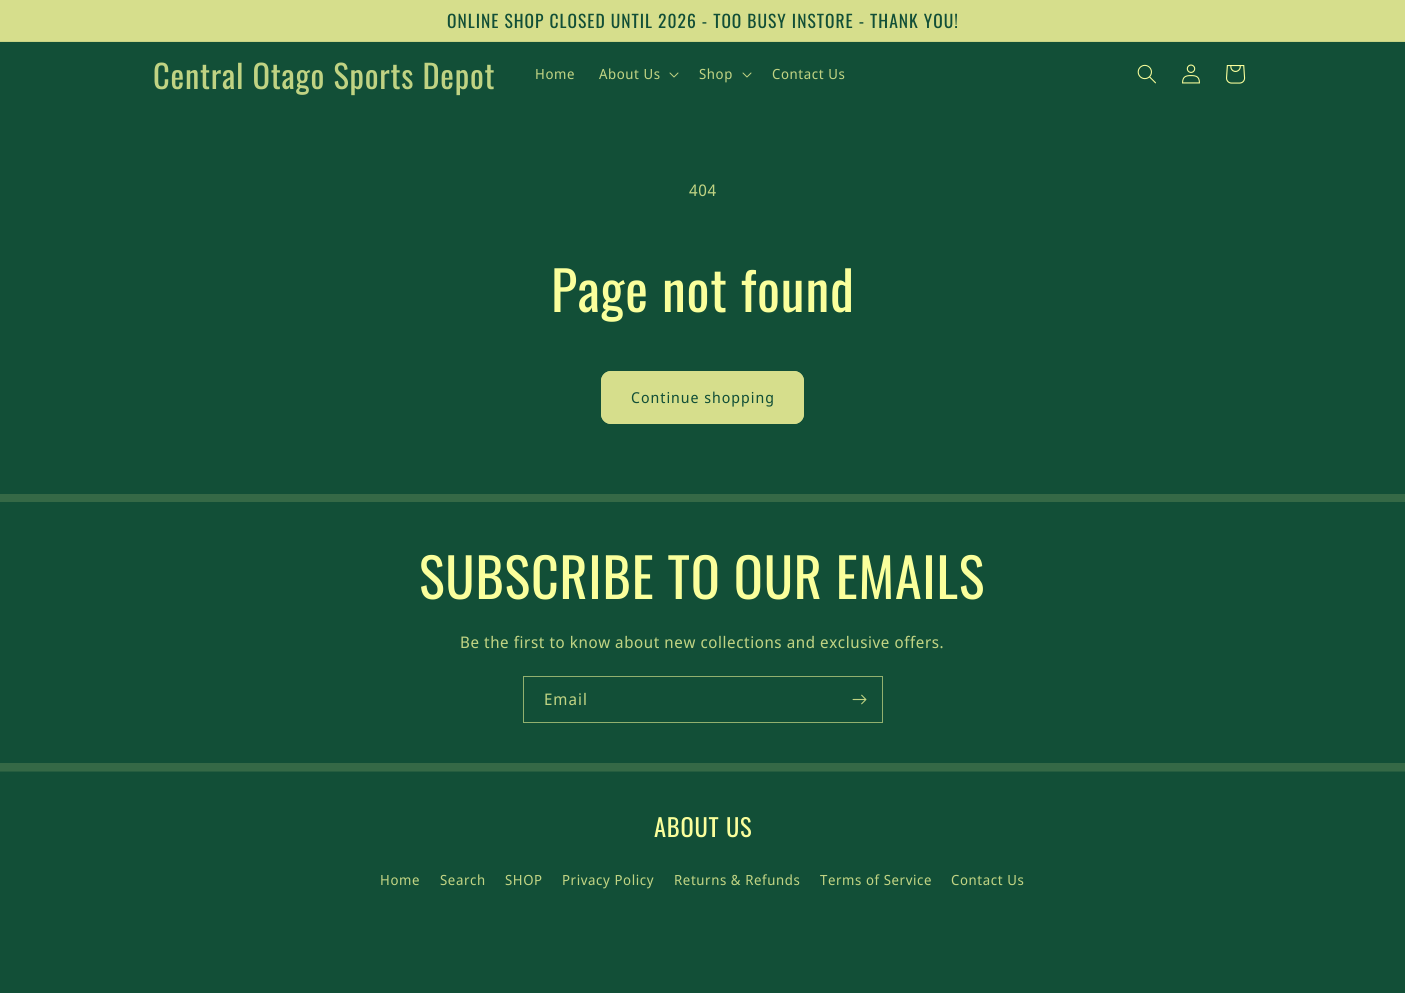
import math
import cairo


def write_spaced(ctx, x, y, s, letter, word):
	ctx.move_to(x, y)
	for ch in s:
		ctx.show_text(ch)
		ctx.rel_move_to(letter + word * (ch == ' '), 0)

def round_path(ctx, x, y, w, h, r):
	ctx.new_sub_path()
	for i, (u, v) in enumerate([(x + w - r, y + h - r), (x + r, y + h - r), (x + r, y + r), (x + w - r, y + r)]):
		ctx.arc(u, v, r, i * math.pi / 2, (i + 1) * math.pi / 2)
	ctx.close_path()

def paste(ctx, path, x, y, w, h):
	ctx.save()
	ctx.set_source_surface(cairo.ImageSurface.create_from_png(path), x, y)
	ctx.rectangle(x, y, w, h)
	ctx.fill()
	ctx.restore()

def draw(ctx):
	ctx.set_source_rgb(0.071, 0.31, 0.216)
	ctx.paint()
	ctx.set_source_rgb(0.839, 0.871, 0.549)
	ctx.rectangle(0, 0, 1405, 41)
	ctx.fill()
	ctx.set_source_rgb(0.776, 0.827, 0.522)
	ctx.rectangle(0, 41, 1405, 1)
	ctx.fill()
	ctx.select_font_face('Oswald')
	ctx.set_font_size(17.55)
	ctx.set_source_rgb(0.071, 0.31, 0.216)
	write_spaced(ctx, 447, 28, 'ONLINE SHOP CLOSED UNTIL 2026 - TOO BUSY INSTORE - THANK YOU!', 1, 0)
	ctx.set_font_size(32.4)
	ctx.set_source_rgb(0.753, 0.827, 0.514)
	write_spaced(ctx, 153, 89, 'Central Otago Sports Depot', 0.8, 0)
	ctx.select_font_face('Noto Sans Display')
	ctx.set_font_size(14)
	write_spaced(ctx, 535, 79, 'Home', 0.6, 0)
	write_spaced(ctx, 599, 79, 'About Us', 0.6, 0)
	paste(ctx, 'media/1.png', 669, 72, 10, 6)
	write_spaced(ctx, 699, 79, 'Shop', 0.6, 0)
	paste(ctx, 'media/1.png', 742, 72, 10, 6)
	write_spaced(ctx, 772, 79, 'Contact Us', 0.6, 0)
	paste(ctx, 'media/2.png', 1137, 64, 19, 20)
	paste(ctx, 'media/3.png', 1182, 64, 18, 20)
	paste(ctx, 'media/4.png', 1226, 65, 20, 19)
	ctx.set_font_size(16)
	write_spaced(ctx, 689, 196, '404', 0.6, 0)
	ctx.select_font_face('Oswald')
	ctx.set_font_size(54)
	ctx.set_source_rgb(0.98, 1, 0.612)
	write_spaced(ctx, 551, 312, 'Page not found', 0.8, 0)
	ctx.set_source_rgb(0.839, 0.871, 0.549)
	round_path(ctx, 601, 371, 203, 53, 10)
	ctx.fill()
	round_path(ctx, 603, 373, 199, 49, 8)
	ctx.set_line_width(4)
	ctx.stroke()
	ctx.select_font_face('Noto Sans Display')
	ctx.set_font_size(15)
	ctx.set_source_rgb(0.071, 0.31, 0.216)
	write_spaced(ctx, 631, 403, 'Continue shopping', 1, 0)
	ctx.set_source_rgb(0.208, 0.412, 0.275)
	ctx.rectangle(0, 494, 1405, 8)
	ctx.fill()
	ctx.rectangle(0, 763, 1405, 8)
	ctx.fill()
	ctx.select_font_face('Oswald')
	ctx.set_font_size(54)
	ctx.set_source_rgb(0.98, 1, 0.612)
	write_spaced(ctx, 419, 599, 'SUBSCRIBE TO OUR EMAILS', 0.8, 0)
	ctx.select_font_face('Noto Sans Display')
	ctx.set_font_size(16)
	ctx.set_source_rgb(0.753, 0.827, 0.514)
	write_spaced(ctx, 460, 648, 'Be the first to know about new collections and exclusive offers.', 0.6, 0)
	ctx.rectangle(523.5, 676.5, 359, 46)
	ctx.set_source_rgb(0.573, 0.69, 0.435)
	ctx.set_line_width(1)
	ctx.stroke()
	ctx.set_source_rgb(0.753, 0.827, 0.514)
	write_spaced(ctx, 544, 705, 'Email', 1, 0)
	paste(ctx, 'media/5.png', 852, 694, 15, 11)
	ctx.set_source_rgb(0.145, 0.365, 0.247)
	ctx.rectangle(0, 771, 1405, 1)
	ctx.fill()
	ctx.select_font_face('Oswald')
	ctx.set_font_size(24.5)
	ctx.set_source_rgb(0.98, 1, 0.612)
	write_spaced(ctx, 654, 837, 'ABOUT US', 0.8, 0)
	ctx.select_font_face('Noto Sans Display')
	ctx.set_font_size(14)
	ctx.set_source_rgb(0.753, 0.827, 0.514)
	for x, y, s in [
		(380, 885, 'Home'),
		(440, 885, 'Search'),
		(505, 885, 'SHOP'),
		(562, 885, 'Privacy Policy'),
		(674, 885, 'Returns & Refunds'),
		(820, 885, 'Terms of Service'),
		(951, 885, 'Contact Us'),
	]:
		write_spaced(ctx, x, y, s, 0.6, 0)


surface = cairo.ImageSurface(cairo.FORMAT_RGB24, 1405, 993)
ctx = cairo.Context(surface)
options = cairo.FontOptions()
options.set_hint_metrics(cairo.HINT_METRICS_OFF)
options.set_hint_style(cairo.HINT_STYLE_NONE)
ctx.set_font_options(options)
ctx.set_miter_limit(4)
draw(ctx)
surface.write_to_png('image.png')
